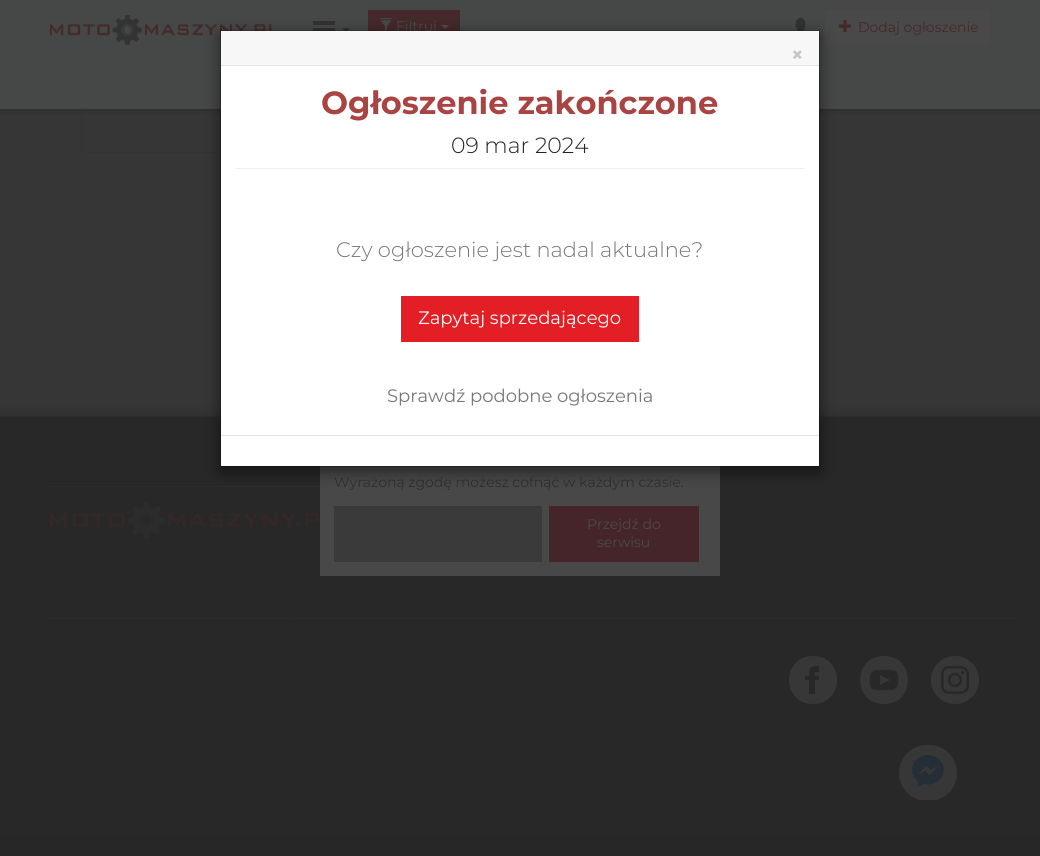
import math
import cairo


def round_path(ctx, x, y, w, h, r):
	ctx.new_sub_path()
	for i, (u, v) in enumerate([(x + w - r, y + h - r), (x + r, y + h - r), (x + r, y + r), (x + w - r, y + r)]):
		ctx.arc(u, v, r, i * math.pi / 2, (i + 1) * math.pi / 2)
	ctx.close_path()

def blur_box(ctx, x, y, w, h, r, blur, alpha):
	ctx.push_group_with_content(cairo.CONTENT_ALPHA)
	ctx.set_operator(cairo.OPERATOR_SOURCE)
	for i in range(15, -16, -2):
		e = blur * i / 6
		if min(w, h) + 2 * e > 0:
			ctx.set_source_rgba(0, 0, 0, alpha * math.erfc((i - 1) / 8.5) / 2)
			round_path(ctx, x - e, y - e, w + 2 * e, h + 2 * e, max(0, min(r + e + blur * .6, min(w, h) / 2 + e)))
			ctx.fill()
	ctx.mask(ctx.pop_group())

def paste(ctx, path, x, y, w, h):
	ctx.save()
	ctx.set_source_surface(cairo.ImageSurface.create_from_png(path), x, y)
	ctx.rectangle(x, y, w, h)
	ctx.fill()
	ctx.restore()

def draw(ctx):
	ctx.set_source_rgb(0.212, 0.212, 0.212)
	ctx.paint()
	round_path(ctx, 81.5, 33.5, 485, 119, 3.5)
	ctx.set_source_rgb(0.2, 0.2, 0.2)
	ctx.set_line_width(1)
	ctx.stroke()
	ctx.set_source_rgb(0.145, 0.145, 0.145)
	blur_box(ctx, -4, -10, 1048, 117, 0, 5, 1)
	ctx.set_source_rgb(0.275, 0.278, 0.278)
	ctx.rectangle(0, 0, 1040, 108)
	ctx.fill()
	ctx.set_source_rgb(0.267, 0.267, 0.267)
	ctx.rectangle(0, 108, 1040, 1)
	ctx.fill()
	paste(ctx, 'media/1.png', 50, 15, 222, 30)
	ctx.set_source_rgb(0.192, 0.192, 0.192)
	ctx.rectangle(313, 21, 22, 4)
	ctx.fill()
	ctx.rectangle(313, 28, 22, 3)
	ctx.fill()
	ctx.new_path()
	ctx.move_to(342, 28)
	ctx.line_to(350, 28)
	ctx.line_to(346, 32)
	ctx.close_path()
	ctx.fill()
	ctx.set_source_rgb(0.271, 0.161, 0.165)
	ctx.rectangle(368, 10, 92, 21)
	ctx.fill()
	paste(ctx, 'media/2.png', 380, 18, 12, 13)
	ctx.select_font_face('Montserrat')
	ctx.set_font_size(14)
	ctx.set_source_rgb(0.286, 0.286, 0.286)
	ctx.move_to(396, 31)
	ctx.show_text('Filtruj')
	ctx.new_path()
	ctx.move_to(441, 25)
	ctx.line_to(449, 25)
	ctx.line_to(445, 29)
	ctx.close_path()
	ctx.fill()
	paste(ctx, 'media/3.png', 795, 18, 11, 13)
	ctx.rectangle(825, 10, 165, 33)
	ctx.fill()
	paste(ctx, 'media/4.png', 839, 20, 12, 12)
	ctx.set_source_rgb(0.271, 0.161, 0.165)
	ctx.move_to(858, 32)
	ctx.show_text('Dodaj ogłoszenie')
	ctx.set_source_rgb(0.169, 0.169, 0.169)
	blur_box(ctx, 0, 416, 1040, 419, 0, 7.5, 1)
	ctx.set_source_rgb(0.157, 0.157, 0.157)
	ctx.rectangle(0, 417, 1040, 417)
	ctx.fill()
	ctx.set_source_rgb(0.176, 0.176, 0.176)
	ctx.rectangle(0, 416, 1040, 1)
	ctx.rectangle(49, 486, 271, 1)
	ctx.fill()
	ctx.set_source_rgb(0.282, 0.282, 0.282)
	ctx.rectangle(320, 466, 400, 110)
	ctx.fill()
	ctx.set_source_rgb(0, 0, 0)
	blur_box(ctx, 220, 35, 600, 437, 0, 7.5, 0.5)
	ctx.set_source_rgb(1, 1, 1)
	ctx.rectangle(221, 66, 598, 400)
	ctx.fill()
	ctx.rectangle(220.5, 30.5, 599, 436)
	ctx.set_source_rgba(0, 0, 0, 0.2)
	ctx.stroke()
	ctx.set_source_rgb(0.965, 0.965, 0.965)
	ctx.rectangle(221, 31, 598, 34)
	ctx.fill()
	ctx.set_source_rgb(0.898, 0.898, 0.898)
	ctx.rectangle(221, 65, 598, 1)
	ctx.fill()
	ctx.select_font_face('Montserrat', cairo.FONT_SLANT_NORMAL, cairo.FONT_WEIGHT_BOLD)
	ctx.set_font_size(21)
	ctx.set_source_rgb(0.773, 0.773, 0.773)
	ctx.move_to(791, 62)
	ctx.show_text('×')
	ctx.set_font_size(32)
	ctx.set_source_rgb(0.663, 0.267, 0.259)
	ctx.move_to(321, 114)
	ctx.show_text('Ogłoszenie zakończone')
	ctx.select_font_face('Montserrat Light')
	ctx.set_font_size(22)
	ctx.set_source_rgb(0.133, 0.133, 0.133)
	ctx.move_to(451, 153)
	ctx.show_text('09 mar 2024')
	ctx.set_source_rgb(0.933, 0.933, 0.933)
	ctx.rectangle(236, 168, 568, 1)
	ctx.fill()
	ctx.set_font_size(21)
	ctx.set_source_rgb(0.467, 0.467, 0.467)
	ctx.move_to(336, 257)
	ctx.show_text('Czy ogłoszenie jest nadal aktualne?')
	ctx.set_source_rgb(0.89, 0.118, 0.141)
	ctx.rectangle(401, 296, 238, 46)
	ctx.fill()
	ctx.select_font_face('Montserrat')
	ctx.set_font_size(18)
	ctx.set_source_rgb(1, 1, 1)
	ctx.move_to(418, 324)
	ctx.show_text('Zapytaj sprzedającego')
	ctx.set_source_rgb(0.467, 0.467, 0.467)
	ctx.move_to(387, 402)
	ctx.show_text('Sprawdź podobne ogłoszenia')
	ctx.set_source_rgb(0.898, 0.898, 0.898)
	ctx.rectangle(221, 435, 598, 1)
	ctx.fill()
	ctx.set_source_rgb(0.161, 0.161, 0.161)
	ctx.rectangle(0, 834, 1040, 1)
	ctx.fill()
	paste(ctx, 'media/5.png', 50, 502, 270, 37)
	ctx.set_source_rgb(0.176, 0.176, 0.176)
	ctx.rectangle(49, 618, 240, 1)
	ctx.rectangle(292, 618, 240, 1)
	ctx.rectangle(534, 618, 240, 1)
	ctx.rectangle(777, 618, 240, 1)
	ctx.fill()
	ctx.set_source_rgb(0.216, 0.216, 0.216)
	ctx.new_path()
	ctx.move_to(813, 656)
	ctx.curve_to(781, 656, 781, 704, 813, 704)
	ctx.curve_to(845, 704, 845, 656, 813, 656)
	ctx.close_path()
	ctx.move_to(819, 672)
	ctx.curve_to(814, 672, 815, 672, 815, 676)
	ctx.line_to(819, 676)
	ctx.line_to(819, 680)
	ctx.line_to(815, 680)
	ctx.line_to(815, 694)
	ctx.line_to(809, 694)
	ctx.line_to(809, 680)
	ctx.line_to(805, 680)
	ctx.line_to(805, 676)
	ctx.line_to(809, 676)
	ctx.curve_to(809, 667, 810, 666, 819, 666)
	ctx.close_path()
	ctx.fill()
	ctx.new_path()
	ctx.move_to(884, 656)
	ctx.curve_to(852, 656, 852, 704, 884, 704)
	ctx.curve_to(916, 704, 916, 656, 884, 656)
	ctx.close_path()
	ctx.move_to(893, 690)
	ctx.curve_to(889, 690, 876, 691, 872, 689)
	ctx.curve_to(869, 687, 869, 674, 872, 672)
	ctx.line_to(875, 670)
	ctx.curve_to(879, 670, 892, 669, 896, 671)
	ctx.curve_to(899, 673, 899, 686, 896, 688)
	ctx.close_path()
	ctx.move_to(880, 675)
	ctx.line_to(890, 680)
	ctx.line_to(880, 685)
	ctx.close_path()
	ctx.fill()
	paste(ctx, 'media/6.png', 931, 656, 48, 48)
	round_path(ctx, 899, 745, 58, 56, 28)
	ctx.fill()
	ctx.set_source_rgb(0.157, 0.157, 0.157)
	ctx.rectangle(913, 800, 30, 1)
	ctx.fill()
	paste(ctx, 'media/7.png', 912, 755, 32, 32)
	ctx.set_font_size(14)
	ctx.set_source_rgb(0.18, 0.18, 0.18)
	for x, y, s in [
		(437, 469, '„'),
		(637, 469, '.'),
		(334, 487, 'Wyrażoną zgodę możesz cofnąć w każdym czasie.'),
	]:
		ctx.move_to(x, y)
		ctx.show_text(s)
	ctx.set_source_rgb(0.227, 0.227, 0.227)
	ctx.rectangle(334, 506, 208, 56)
	ctx.fill()
	ctx.set_source_rgb(0.271, 0.145, 0.161)
	ctx.rectangle(549, 506, 150, 56)
	ctx.fill()
	ctx.set_source_rgb(0.286, 0.286, 0.286)
	ctx.move_to(587, 529)
	ctx.show_text('Przejdź do')
	ctx.move_to(597, 547)
	ctx.show_text('serwisu')
	ctx.set_source_rgb(0.153, 0.153, 0.153)
	ctx.rectangle(0, 835, 1040, 21)
	ctx.fill()


surface = cairo.ImageSurface(cairo.FORMAT_RGB24, 1040, 856)
ctx = cairo.Context(surface)
options = cairo.FontOptions()
options.set_hint_metrics(cairo.HINT_METRICS_OFF)
options.set_hint_style(cairo.HINT_STYLE_NONE)
ctx.set_font_options(options)
ctx.set_miter_limit(4)
draw(ctx)
surface.write_to_png('image.png')
